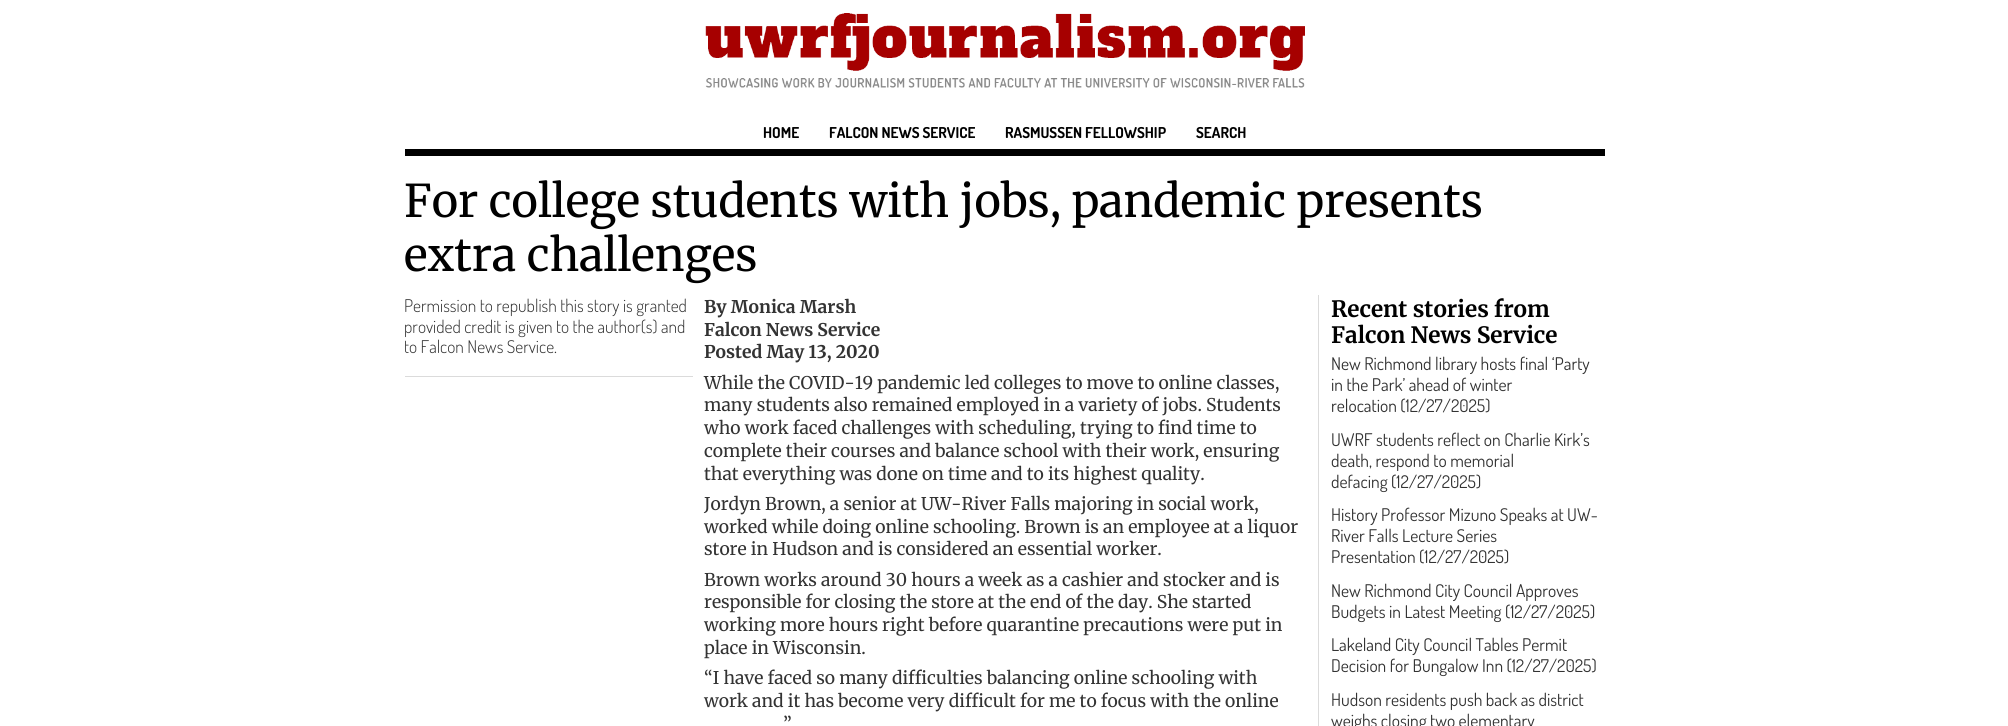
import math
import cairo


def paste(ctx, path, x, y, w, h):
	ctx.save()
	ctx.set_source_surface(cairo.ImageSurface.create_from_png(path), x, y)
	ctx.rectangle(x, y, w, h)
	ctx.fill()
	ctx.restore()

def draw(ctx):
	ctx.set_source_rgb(1, 1, 1)
	ctx.paint()
	paste(ctx, 'media/1.png', 705, 13, 600, 75)
	ctx.set_source_rgb(0, 0, 0)
	ctx.rectangle(405, 149, 1200, 7)
	ctx.fill()
	ctx.select_font_face('Dosis', cairo.FONT_SLANT_NORMAL, cairo.FONT_WEIGHT_BOLD)
	ctx.set_font_size(15)
	for x, y, s in [
		(763, 138, 'HOME'),
		(829, 138, 'FALCON NEWS SERVICE'),
		(1005, 138, 'RASMUSSEN FELLOWSHIP'),
		(1196, 138, 'SEARCH'),
	]:
		ctx.move_to(x, y)
		ctx.show_text(s)
	ctx.select_font_face('Merriweather')
	ctx.set_font_size(45)
	ctx.move_to(404, 217)
	ctx.show_text('For college students with jobs, pandemic presents')
	ctx.move_to(404, 271)
	ctx.show_text('extra challenges')
	ctx.set_source_rgb(0.859, 0.859, 0.859)
	ctx.rectangle(405, 376, 288, 1)
	ctx.fill()
	ctx.select_font_face('Dosis Light')
	ctx.set_font_size(17.5)
	ctx.set_source_rgb(0.2, 0.2, 0.2)
	for x, y, s in [
		(404, 312, 'Permission to republish this story is granted'),
		(404, 333, 'provided credit is given to the author(s) and'),
		(404, 353, 'to Falcon News Service.'),
	]:
		ctx.move_to(x, y)
		ctx.show_text(s)
	ctx.select_font_face('Merriweather', cairo.FONT_SLANT_NORMAL, cairo.FONT_WEIGHT_BOLD)
	for x, y, s in [
		(704, 313, 'By Monica Marsh'),
		(704, 336, 'Falcon News Service'),
		(704, 358, 'Posted May 13, 2020'),
	]:
		ctx.move_to(x, y)
		ctx.show_text(s)
	ctx.select_font_face('Merriweather')
	for x, y, s in [
		(704, 389, 'While the COVID-19 pandemic led colleges to move to online classes,'),
		(704, 411, 'many students also remained employed in a variety of jobs. Students'),
		(704, 434, 'who work faced challenges with scheduling, trying to find time to'),
		(704, 457, 'complete their courses and balance school with their work, ensuring'),
		(704, 480, 'that everything was done on time and to its highest quality.'),
		(704, 510, 'Jordyn Brown, a senior at UW-River Falls majoring in social work,'),
		(704, 533, 'worked while doing online schooling. Brown is an employee at a liquor'),
		(704, 555, 'store in Hudson and is considered an essential worker.'),
		(704, 586, 'Brown works around 30 hours a week as a cashier and stocker and is'),
		(704, 608, 'responsible for closing the store at the end of the day. She started'),
		(704, 631, 'working more hours right before quarantine precautions were put in'),
		(704, 654, 'place in Wisconsin.'),
		(704, 684, '“I have faced so many difficulties balancing online schooling with'),
		(704, 707, 'work and it has become very difficult for me to focus with the online'),
		(783, 730, '”'),
	]:
		ctx.move_to(x, y)
		ctx.show_text(s)
	ctx.set_source_rgb(0.859, 0.859, 0.859)
	ctx.rectangle(1318, 295, 1, 431)
	ctx.fill()
	ctx.select_font_face('Merriweather', cairo.FONT_SLANT_NORMAL, cairo.FONT_WEIGHT_BOLD)
	ctx.set_font_size(22.5)
	ctx.set_source_rgb(0, 0, 0)
	ctx.move_to(1331, 317)
	ctx.show_text('Recent stories from')
	ctx.move_to(1331, 343)
	ctx.show_text('Falcon News Service')
	ctx.select_font_face('Dosis')
	ctx.set_font_size(17.5)
	ctx.set_source_rgb(0.2, 0.2, 0.2)
	for x, y, s in [
		(1331, 370, 'New Richmond library hosts final ‘Party'),
		(1331, 391, 'in the Park’ ahead of winter'),
		(1331, 412, 'relocation (12/27/2025)'),
		(1331, 446, 'UWRF students reflect on Charlie Kirk’s'),
		(1331, 467, 'death, respond to memorial'),
		(1331, 488, 'defacing (12/27/2025)'),
		(1331, 521, 'History Professor Mizuno Speaks at UW-'),
		(1331, 542, 'River Falls Lecture Series'),
		(1331, 563, 'Presentation (12/27/2025)'),
		(1331, 597, 'New Richmond City Council Approves'),
		(1331, 618, 'Budgets in Latest Meeting (12/27/2025)'),
		(1331, 651, 'Lakeland City Council Tables Permit'),
		(1331, 672, 'Decision for Bungalow Inn (12/27/2025)'),
		(1331, 706, 'Hudson residents push back as district'),
		(1331, 727, 'weighs closing two elementary'),
	]:
		ctx.move_to(x, y)
		ctx.show_text(s)


surface = cairo.ImageSurface(cairo.FORMAT_RGB24, 2008, 726)
ctx = cairo.Context(surface)
options = cairo.FontOptions()
options.set_hint_metrics(cairo.HINT_METRICS_OFF)
options.set_hint_style(cairo.HINT_STYLE_NONE)
ctx.set_font_options(options)
ctx.set_miter_limit(4)
draw(ctx)
surface.write_to_png('image.png')
